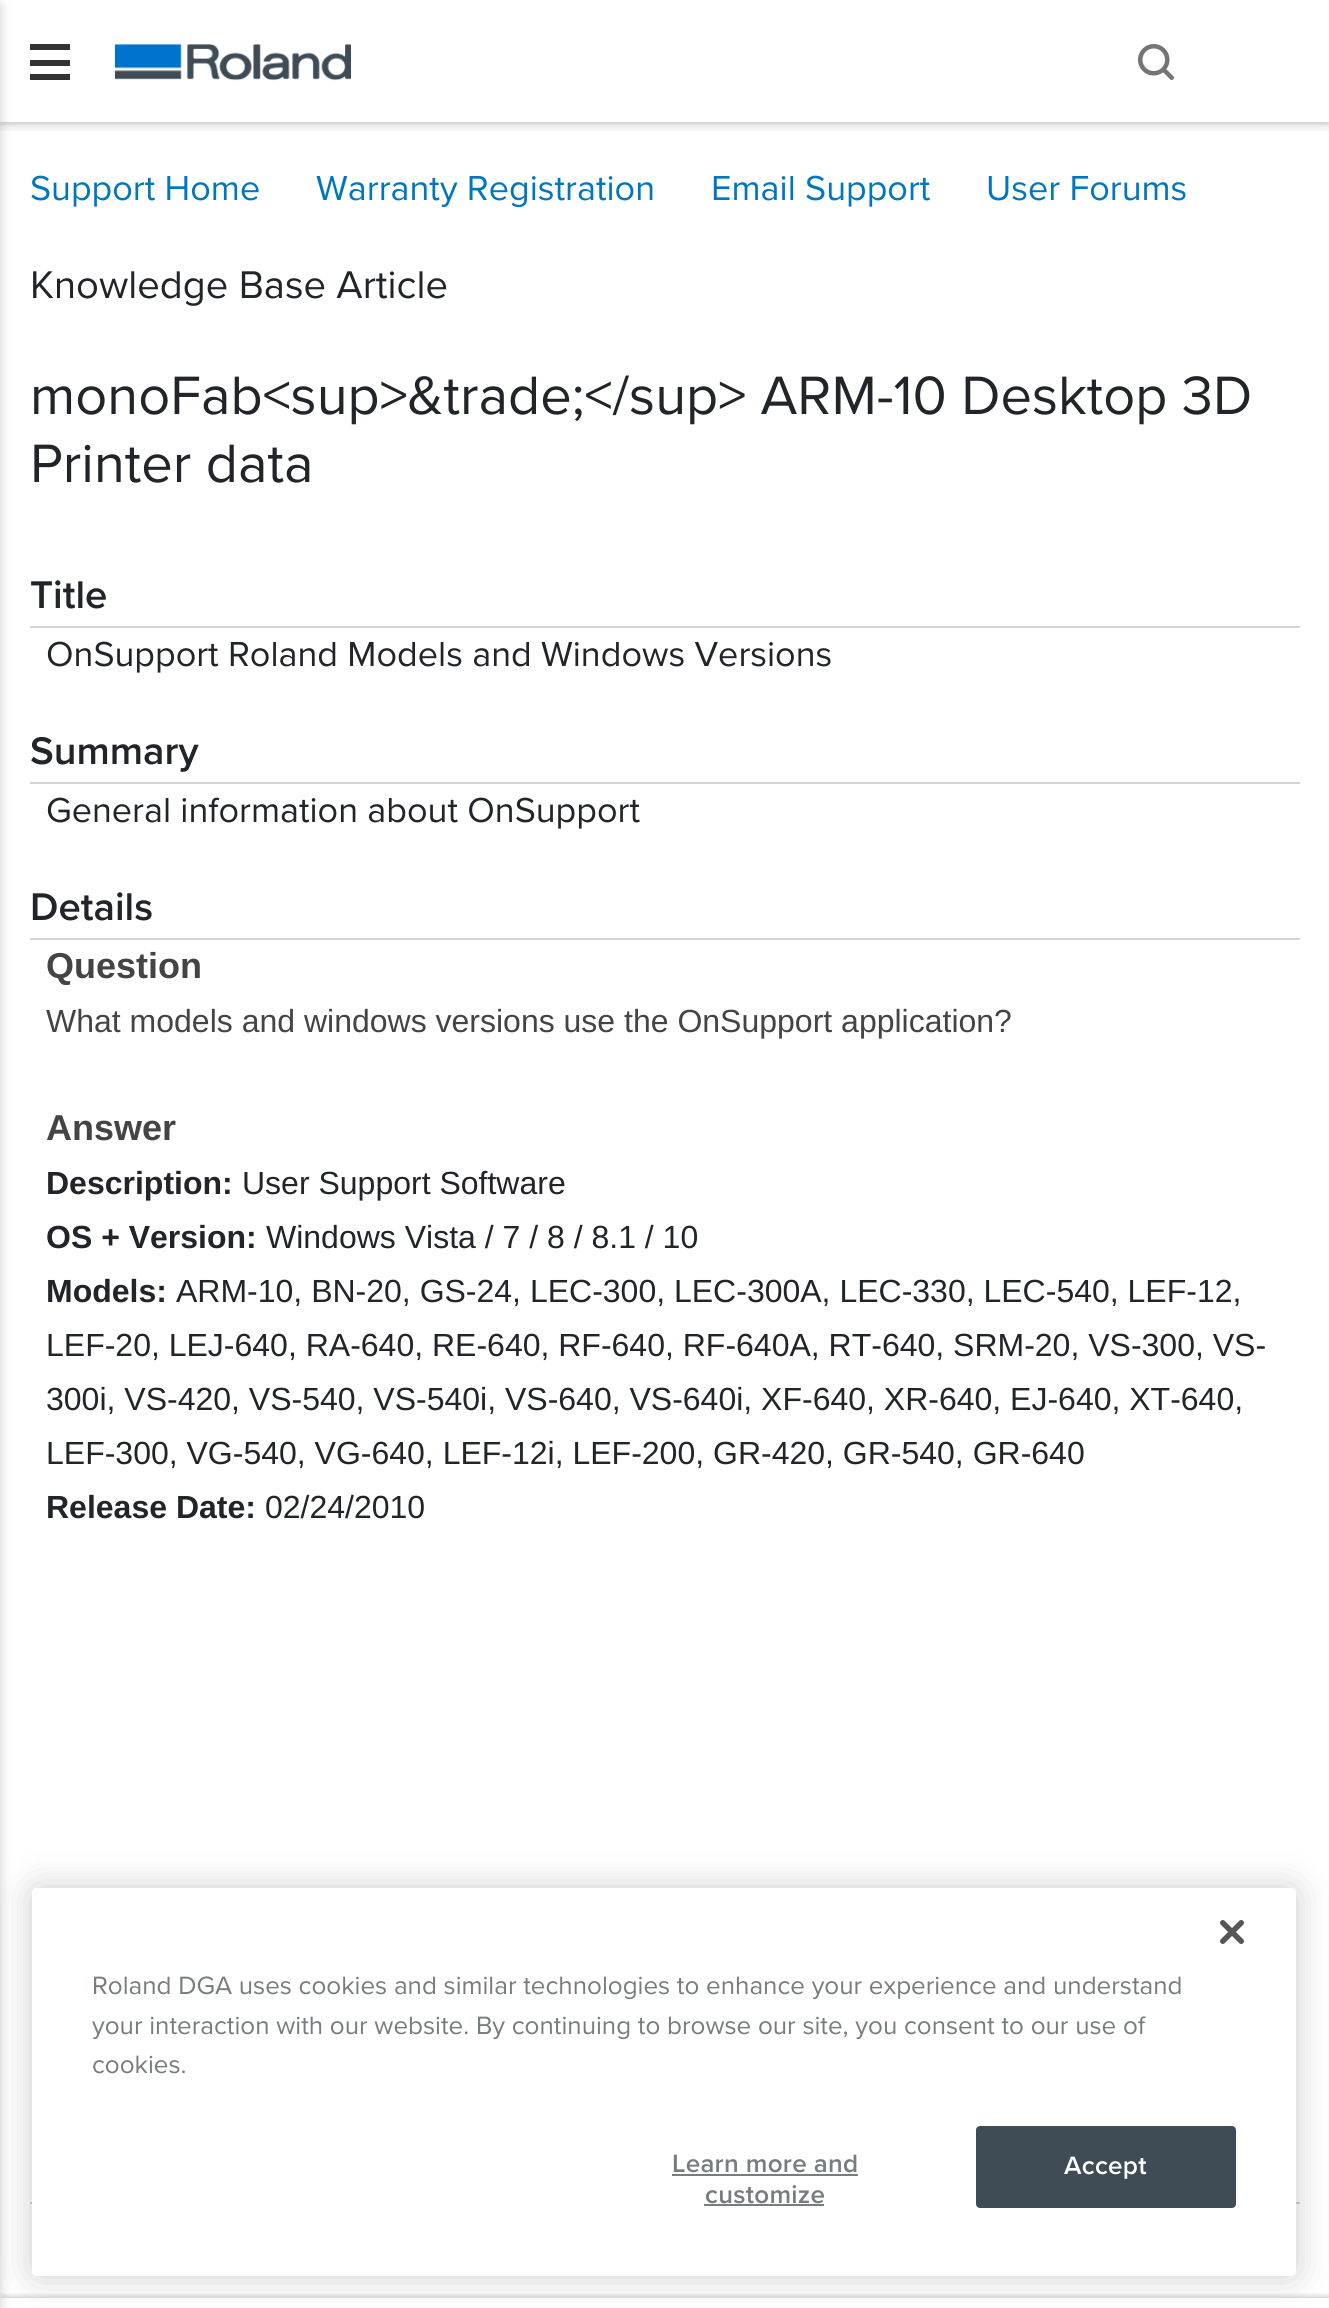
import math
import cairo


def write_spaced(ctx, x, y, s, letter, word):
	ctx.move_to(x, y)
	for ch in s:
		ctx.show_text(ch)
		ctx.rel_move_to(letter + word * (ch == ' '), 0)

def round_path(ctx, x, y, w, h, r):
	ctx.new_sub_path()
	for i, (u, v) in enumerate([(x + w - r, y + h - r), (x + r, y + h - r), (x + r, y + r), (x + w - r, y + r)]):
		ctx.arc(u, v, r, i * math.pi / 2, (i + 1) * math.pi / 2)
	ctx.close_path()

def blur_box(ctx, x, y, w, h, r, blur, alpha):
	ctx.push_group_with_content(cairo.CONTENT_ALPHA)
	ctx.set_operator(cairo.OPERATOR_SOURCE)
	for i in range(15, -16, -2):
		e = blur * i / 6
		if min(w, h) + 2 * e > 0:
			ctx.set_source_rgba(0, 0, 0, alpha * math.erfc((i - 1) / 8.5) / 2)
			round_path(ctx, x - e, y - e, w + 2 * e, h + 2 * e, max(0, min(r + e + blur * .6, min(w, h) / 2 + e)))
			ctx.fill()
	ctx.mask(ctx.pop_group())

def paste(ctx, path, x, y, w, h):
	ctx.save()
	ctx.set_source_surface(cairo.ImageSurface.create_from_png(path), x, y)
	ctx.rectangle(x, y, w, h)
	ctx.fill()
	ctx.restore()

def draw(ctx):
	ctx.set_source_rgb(1, 1, 1)
	ctx.paint()
	ctx.save()
	ctx.rectangle(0, 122, 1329, 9)
	ctx.clip()
	ctx.set_source_rgb(0, 0, 0)
	blur_box(ctx, 0, 6, 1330, 122, 0, 4, 0.1)
	ctx.restore()
	ctx.save()
	ctx.rectangle(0, 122, 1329, 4)
	ctx.clip()
	ctx.set_source_rgb(0, 0, 0)
	blur_box(ctx, 0, 2, 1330, 122, 0, 2, 0.1)
	ctx.restore()
	ctx.set_source_rgb(0.2, 0.2, 0.2)
	ctx.rectangle(30, 60, 40, 6)
	ctx.rectangle(30, 44, 40, 6)
	ctx.rectangle(30, 74, 40, 6)
	ctx.fill()
	paste(ctx, 'media/1.png', 114, 44, 237, 37)
	paste(ctx, 'media/2.png', 1138, 44, 36, 36)
	ctx.set_source_rgb(0, 0, 0)
	blur_box(ctx, -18, 6, 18, 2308, 0, 6, 0.2)
	ctx.select_font_face('Proxima Nova')
	ctx.set_font_size(36)
	ctx.set_source_rgb(0, 0.463, 0.745)
	for x, y, s in [
		(30, 200, 'Support Home'),
		(316, 200, 'Warranty Registration'),
		(711, 200, 'Email Support'),
		(986, 200, 'User Forums'),
	]:
		ctx.move_to(x, y)
		ctx.show_text(s)
	ctx.set_font_size(40)
	ctx.set_source_rgb(0.129, 0.145, 0.161)
	ctx.move_to(30, 298)
	ctx.show_text('Knowledge Base Article')
	ctx.set_font_size(56)
	ctx.move_to(30, 414)
	ctx.show_text('monoFab<sup>&trade;</sup> ARM-10 Desktop 3D')
	ctx.move_to(30, 482)
	ctx.show_text('Printer data')
	ctx.set_source_rgb(0.827, 0.827, 0.827)
	ctx.rectangle(30, 626, 1270, 2)
	ctx.fill()
	ctx.select_font_face('Proxima Nova SemiBold')
	ctx.set_font_size(40)
	ctx.set_source_rgb(0.129, 0.145, 0.161)
	ctx.move_to(30, 608)
	ctx.show_text('Title')
	ctx.select_font_face('Proxima Nova')
	ctx.set_font_size(36)
	ctx.move_to(46, 666)
	ctx.show_text('OnSupport Roland Models and Windows Versions')
	ctx.set_source_rgb(0.827, 0.827, 0.827)
	ctx.rectangle(30, 782, 1270, 2)
	ctx.fill()
	ctx.select_font_face('Proxima Nova SemiBold')
	ctx.set_font_size(40)
	ctx.set_source_rgb(0.129, 0.145, 0.161)
	ctx.move_to(30, 764)
	ctx.show_text('Summary')
	ctx.select_font_face('Proxima Nova')
	ctx.set_font_size(36)
	ctx.move_to(46, 822)
	ctx.show_text('General information about OnSupport')
	ctx.set_source_rgb(0.827, 0.827, 0.827)
	ctx.rectangle(30, 938, 1270, 2)
	ctx.fill()
	ctx.select_font_face('Proxima Nova SemiBold')
	ctx.set_font_size(40)
	ctx.set_source_rgb(0.129, 0.145, 0.161)
	ctx.move_to(30, 920)
	ctx.show_text('Details')
	ctx.select_font_face('Liberation Sans', cairo.FONT_SLANT_NORMAL, cairo.FONT_WEIGHT_BOLD)
	ctx.set_font_size(36)
	ctx.set_source_rgb(0.267, 0.267, 0.267)
	ctx.move_to(46, 978)
	ctx.show_text('Question')
	ctx.select_font_face('Liberation Sans')
	ctx.set_font_size(32)
	ctx.move_to(46, 1032)
	ctx.show_text('What models and windows versions use the OnSupport application?')
	ctx.select_font_face('Liberation Sans', cairo.FONT_SLANT_NORMAL, cairo.FONT_WEIGHT_BOLD)
	ctx.set_font_size(36)
	ctx.move_to(46, 1140)
	ctx.show_text('Answer')
	ctx.set_font_size(32)
	ctx.set_source_rgb(0.129, 0.145, 0.161)
	ctx.move_to(46, 1194)
	ctx.show_text('Description:')
	ctx.select_font_face('Liberation Sans')
	ctx.move_to(242, 1194)
	ctx.show_text('User Support Software')
	ctx.select_font_face('Liberation Sans', cairo.FONT_SLANT_NORMAL, cairo.FONT_WEIGHT_BOLD)
	ctx.move_to(46, 1248)
	ctx.show_text('OS + Version:')
	ctx.select_font_face('Liberation Sans')
	ctx.move_to(266, 1248)
	ctx.show_text('Windows Vista / 7 / 8 / 8.1 / 10')
	ctx.select_font_face('Liberation Sans', cairo.FONT_SLANT_NORMAL, cairo.FONT_WEIGHT_BOLD)
	ctx.move_to(46, 1302)
	ctx.show_text('Models:')
	ctx.select_font_face('Liberation Sans')
	for x, y, s in [
		(176, 1302, 'ARM-10, BN-20, GS-24, LEC-300, LEC-300A, LEC-330, LEC-540, LEF-12,'),
		(46, 1356, 'LEF-20, LEJ-640, RA-640, RE-640, RF-640, RF-640A, RT-640, SRM-20, VS-300, VS-'),
		(46, 1410, '300i, VS-420, VS-540, VS-540i, VS-640, VS-640i, XF-640, XR-640, EJ-640, XT-640,'),
		(46, 1464, 'LEF-300, VG-540, VG-640, LEF-12i, LEF-200, GR-420, GR-540, GR-640'),
	]:
		ctx.move_to(x, y)
		ctx.show_text(s)
	ctx.select_font_face('Liberation Sans', cairo.FONT_SLANT_NORMAL, cairo.FONT_WEIGHT_BOLD)
	ctx.move_to(46, 1518)
	ctx.show_text('Release Date:')
	ctx.select_font_face('Liberation Sans')
	ctx.move_to(265, 1518)
	ctx.show_text('02/24/2010')
	ctx.set_source_rgb(0.827, 0.827, 0.827)
	ctx.rectangle(30, 2202, 1270, 2)
	ctx.fill()
	ctx.set_source_rgb(0, 0, 0)
	blur_box(ctx, 32, 1888, 1264, 388, 5, 18, 0.2)
	ctx.set_source_rgb(1, 1, 1)
	round_path(ctx, 32, 1888, 1264, 388, 5)
	ctx.fill()
	paste(ctx, 'media/3.png', 1220, 1920, 24, 24)
	ctx.select_font_face('Proxima Nova')
	ctx.set_font_size(26)
	ctx.set_source_rgb(0.463, 0.49, 0.49)
	for x, y, s in [
		(92, 1994, 'Roland DGA uses cookies and similar technologies to enhance your experience and understand'),
		(92, 2034, 'your interaction with our website. By continuing to browse our site, you consent to our use of'),
		(92, 2073, 'cookies.'),
	]:
		ctx.move_to(x, y)
		ctx.show_text(s)
	ctx.select_font_face('Proxima Nova SemiBold')
	write_spaced(ctx, 672, 2172, 'Learn more and', 0.25, 0)
	ctx.rectangle(672, 2174, 186, 2)
	ctx.fill()
	write_spaced(ctx, 705, 2203, 'customize', 0.25, 0)
	ctx.rectangle(704, 2204, 120, 2)
	ctx.fill()
	ctx.set_source_rgb(0.247, 0.294, 0.333)
	round_path(ctx, 977, 2127, 258, 80, 3)
	ctx.fill_preserve()
	ctx.stroke()
	ctx.set_source_rgb(1, 1, 1)
	write_spaced(ctx, 1064, 2174, 'Accept', 0.25, 0)
	ctx.save()
	ctx.rectangle(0, 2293, 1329, 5)
	ctx.clip()
	ctx.set_source_rgb(0, 0, 0)
	blur_box(ctx, 2, 2296, 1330, 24, 0, 4, 0.1)
	ctx.restore()
	ctx.save()
	ctx.rectangle(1, 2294, 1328, 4)
	ctx.clip()
	ctx.set_source_rgb(0, 0, 0)
	blur_box(ctx, 2, 2296, 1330, 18, 0, 2, 0.1)
	ctx.restore()


surface = cairo.ImageSurface(cairo.FORMAT_RGB24, 1329, 2308)
ctx = cairo.Context(surface)
options = cairo.FontOptions()
options.set_hint_metrics(cairo.HINT_METRICS_OFF)
options.set_hint_style(cairo.HINT_STYLE_NONE)
ctx.set_font_options(options)
ctx.set_miter_limit(4)
draw(ctx)
surface.write_to_png('image.png')
